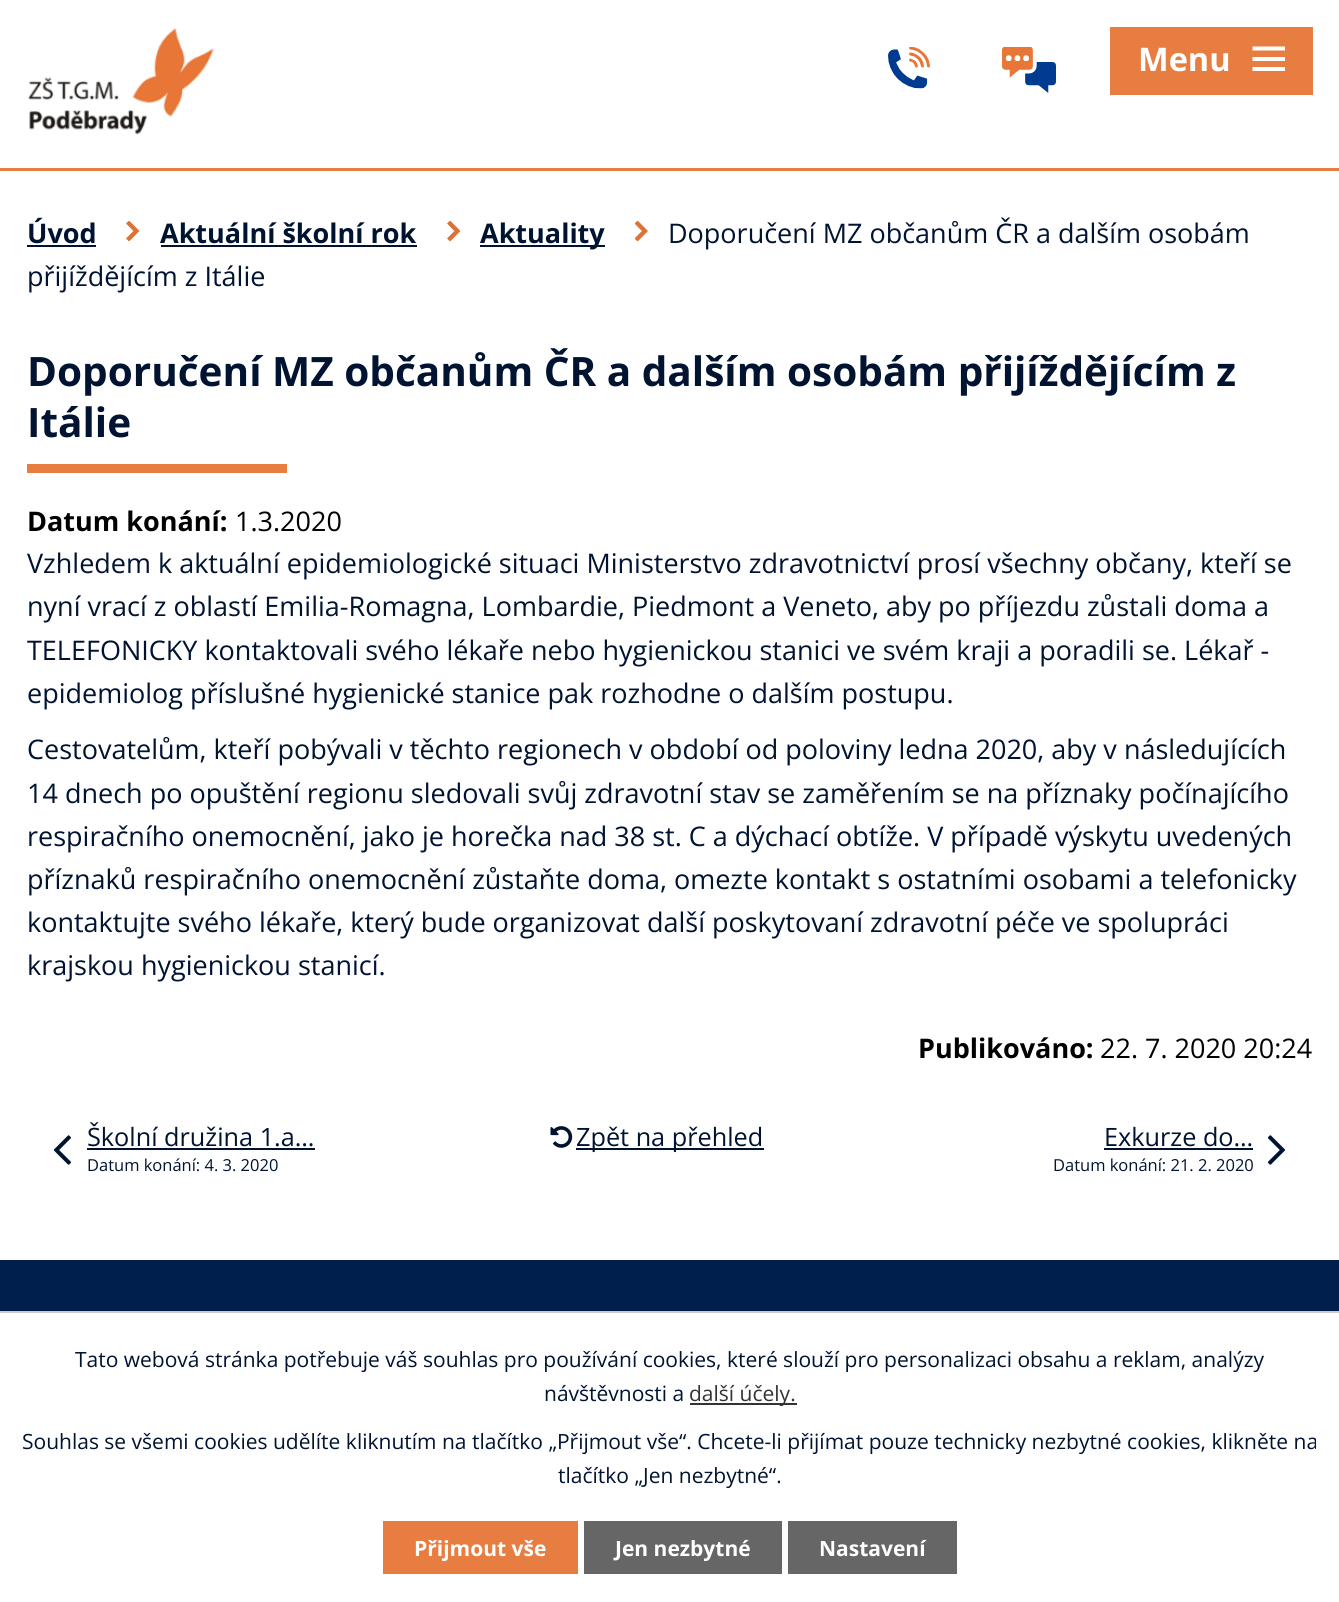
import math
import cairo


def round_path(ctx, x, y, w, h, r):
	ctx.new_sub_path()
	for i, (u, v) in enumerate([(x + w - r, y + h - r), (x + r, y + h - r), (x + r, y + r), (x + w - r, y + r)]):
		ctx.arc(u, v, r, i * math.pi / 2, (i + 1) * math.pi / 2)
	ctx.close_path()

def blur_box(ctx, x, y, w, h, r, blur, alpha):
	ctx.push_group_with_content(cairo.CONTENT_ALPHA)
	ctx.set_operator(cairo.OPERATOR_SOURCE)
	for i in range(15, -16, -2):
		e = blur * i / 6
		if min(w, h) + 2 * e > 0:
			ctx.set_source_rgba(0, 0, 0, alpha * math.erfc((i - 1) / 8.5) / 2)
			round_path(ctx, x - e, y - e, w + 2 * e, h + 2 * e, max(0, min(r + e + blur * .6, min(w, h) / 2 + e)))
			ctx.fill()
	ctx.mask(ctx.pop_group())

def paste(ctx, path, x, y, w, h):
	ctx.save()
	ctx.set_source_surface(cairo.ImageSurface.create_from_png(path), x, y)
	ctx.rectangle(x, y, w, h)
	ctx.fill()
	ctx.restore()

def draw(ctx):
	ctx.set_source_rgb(1, 1, 1)
	ctx.paint()
	ctx.set_source_rgb(0.91, 0.49, 0.255)
	ctx.rectangle(0, 168, 1339, 3)
	ctx.fill()
	paste(ctx, 'media/1.png', 28, 28, 186, 107)
	paste(ctx, 'media/2.png', 888, 47, 42, 42)
	paste(ctx, 'media/3.png', 1002, 47, 54, 46)
	ctx.rectangle(1110, 27, 203, 68)
	ctx.fill()
	ctx.select_font_face('Open Sans', cairo.FONT_SLANT_NORMAL, cairo.FONT_WEIGHT_BOLD)
	ctx.set_font_size(32.5)
	ctx.set_source_rgb(1, 1, 1)
	ctx.move_to(1138, 71)
	ctx.show_text('Menu')
	ctx.new_path()
	ctx.move_to(1252.5, 71)
	ctx.line_to(1252.5, 67)
	ctx.line_to(1285, 67)
	ctx.line_to(1285, 71)
	ctx.close_path()
	ctx.move_to(1252.5, 46.5)
	ctx.line_to(1285, 46.5)
	ctx.line_to(1285, 50.5)
	ctx.line_to(1252.5, 50.5)
	ctx.close_path()
	ctx.move_to(1252.5, 61)
	ctx.line_to(1252.5, 57)
	ctx.line_to(1285, 57)
	ctx.line_to(1285, 61)
	ctx.close_path()
	ctx.fill()
	ctx.set_font_size(27)
	ctx.set_source_rgb(0, 0.078, 0.192)
	ctx.move_to(27, 243)
	ctx.show_text('Úvod')
	ctx.rectangle(27, 245, 69, 2)
	ctx.fill()
	paste(ctx, 'media/4.png', 126, 221, 14, 21)
	ctx.move_to(160, 243)
	ctx.show_text('Aktuální školní rok')
	ctx.rectangle(161, 245, 256, 2)
	ctx.fill()
	paste(ctx, 'media/4.png', 447, 221, 14, 21)
	ctx.rectangle(480, 245, 125, 2)
	ctx.fill()
	ctx.move_to(480, 243)
	ctx.show_text('Aktuality')
	paste(ctx, 'media/5.png', 635, 221, 13, 21)
	ctx.select_font_face('Open Sans')
	ctx.move_to(668, 243)
	ctx.show_text('Doporučení MZ občanům ČR a dalším osobám')
	ctx.move_to(27, 286)
	ctx.show_text('přijíždějícím z Itálie')
	ctx.select_font_face('Open Sans', cairo.FONT_SLANT_NORMAL, cairo.FONT_WEIGHT_BOLD)
	ctx.set_font_size(40.5)
	ctx.move_to(27, 386)
	ctx.show_text('Doporučení MZ občanům ČR a dalším osobám přijíždějícím z')
	ctx.move_to(27, 437)
	ctx.show_text('Itálie')
	ctx.set_source_rgb(0.91, 0.49, 0.255)
	ctx.rectangle(27, 464, 260, 9)
	ctx.fill()
	ctx.set_font_size(27)
	ctx.set_source_rgb(0, 0, 0)
	ctx.move_to(27, 531)
	ctx.show_text('Datum konání:')
	ctx.select_font_face('Open Sans')
	ctx.move_to(235, 531)
	ctx.show_text('1.3.2020')
	ctx.set_source_rgb(0, 0.078, 0.192)
	for x, y, s in [
		(27, 573, 'Vzhledem k aktuální epidemiologické situaci Ministerstvo zdravotnictví prosí všechny občany, kteří se'),
		(27, 616, 'nyní vrací z oblastí Emilia-Romagna, Lombardie, Piedmont a Veneto, aby po příjezdu zůstali doma a'),
		(27, 660, 'TELEFONICKY kontaktovali svého lékaře nebo hygienickou stanici ve svém kraji a poradili se. Lékař -'),
		(27, 703, 'epidemiolog příslušné hygienické stanice pak rozhodne o dalším postupu.'),
		(27, 759, 'Cestovatelům, kteří pobývali v těchto regionech v období od poloviny ledna 2020, aby v následujících'),
		(27, 803, '14 dnech po opuštění regionu sledovali svůj zdravotní stav se zaměřením se na příznaky počínajícího'),
		(27, 846, 'respiračního onemocnění, jako je horečka nad 38 st. C a dýchací obtíže. V případě výskytu uvedených'),
		(27, 889, 'příznaků respiračního onemocnění zůstaňte doma, omezte kontakt s ostatními osobami a telefonicky'),
		(27, 932, 'kontaktujte svého lékaře, který bude organizovat další poskytovaní zdravotní péče ve spolupráci'),
		(27, 975, 'krajskou hygienickou stanicí.'),
	]:
		ctx.move_to(x, y)
		ctx.show_text(s)
	ctx.select_font_face('Open Sans', cairo.FONT_SLANT_NORMAL, cairo.FONT_WEIGHT_BOLD)
	ctx.set_source_rgb(0, 0, 0)
	ctx.move_to(918, 1058)
	ctx.show_text('Publikováno:')
	ctx.select_font_face('Open Sans')
	ctx.move_to(1100, 1058)
	ctx.show_text('22. 7. 2020 20:24')
	paste(ctx, 'media/6.png', 53, 1135, 18, 30)
	ctx.set_font_size(25.25)
	ctx.set_source_rgb(0, 0.078, 0.192)
	ctx.move_to(87, 1146)
	ctx.show_text('Školní družina 1.a…')
	ctx.rectangle(87, 1148, 228, 2)
	ctx.fill()
	ctx.set_font_size(16.5)
	ctx.move_to(87, 1171)
	ctx.show_text('Datum konání: 4. 3. 2020')
	paste(ctx, 'media/7.png', 550, 1126, 23, 22)
	ctx.rectangle(576, 1148, 188, 2)
	ctx.fill()
	ctx.set_font_size(25.25)
	ctx.move_to(576, 1146)
	ctx.show_text('Zpět na přehled')
	ctx.move_to(1104, 1146)
	ctx.show_text('Exkurze do…')
	ctx.rectangle(1104, 1148, 149, 2)
	ctx.fill()
	ctx.set_font_size(16.5)
	ctx.move_to(1053, 1171)
	ctx.show_text('Datum konání: 21. 2. 2020')
	paste(ctx, 'media/8.png', 1267, 1135, 18, 30)
	ctx.set_source_rgb(0, 0.122, 0.302)
	ctx.rectangle(0, 1260, 1339, 51)
	ctx.fill()
	ctx.set_source_rgb(0, 0, 0)
	blur_box(ctx, 0, 1311, 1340, 291, 0, 4, 0.2)
	ctx.set_source_rgb(1, 1, 1)
	ctx.rectangle(0, 1313, 1339, 289)
	ctx.fill()
	ctx.set_source_rgb(0.8, 0.8, 0.8)
	ctx.rectangle(0, 1311, 1339, 2)
	ctx.fill()
	ctx.set_font_size(21)
	ctx.set_source_rgb(0, 0.078, 0.192)
	ctx.move_to(75, 1367)
	ctx.show_text('Tato webová stránka potřebuje váš souhlas pro používání cookies, které slouží pro personalizaci obsahu a reklam, analýzy')
	ctx.move_to(544, 1401)
	ctx.show_text('návštěvnosti a')
	ctx.set_source_rgb(0.2, 0.2, 0.2)
	ctx.rectangle(690, 1403, 107, 2)
	ctx.fill()
	ctx.move_to(689, 1401)
	ctx.show_text('další účely.')
	ctx.set_source_rgb(0, 0.078, 0.192)
	ctx.move_to(22, 1449)
	ctx.show_text('Souhlas se všemi cookies udělíte kliknutím na tlačítko „Přijmout vše“. Chcete-li přijímat pouze technicky nezbytné cookies, klikněte na')
	ctx.move_to(558, 1483)
	ctx.show_text('tlačítko „Jen nezbytné“.')
	ctx.set_source_rgb(0.91, 0.49, 0.255)
	ctx.rectangle(383, 1521, 195, 53)
	ctx.fill()
	ctx.select_font_face('Open Sans', cairo.FONT_SLANT_NORMAL, cairo.FONT_WEIGHT_BOLD)
	ctx.set_source_rgb(1, 1, 1)
	ctx.move_to(414, 1556)
	ctx.show_text('Přijmout vše')
	ctx.set_source_rgb(0.4, 0.4, 0.4)
	ctx.rectangle(584, 1521, 198, 53)
	ctx.fill()
	ctx.set_source_rgb(1, 1, 1)
	ctx.move_to(615, 1556)
	ctx.show_text('Jen nezbytné')
	ctx.set_source_rgb(0.4, 0.4, 0.4)
	ctx.rectangle(788, 1521, 169, 53)
	ctx.fill()
	ctx.set_source_rgb(1, 1, 1)
	ctx.move_to(819, 1556)
	ctx.show_text('Nastavení')


surface = cairo.ImageSurface(cairo.FORMAT_RGB24, 1339, 1602)
ctx = cairo.Context(surface)
options = cairo.FontOptions()
options.set_hint_metrics(cairo.HINT_METRICS_OFF)
options.set_hint_style(cairo.HINT_STYLE_NONE)
ctx.set_font_options(options)
ctx.set_miter_limit(4)
draw(ctx)
surface.write_to_png('image.png')
